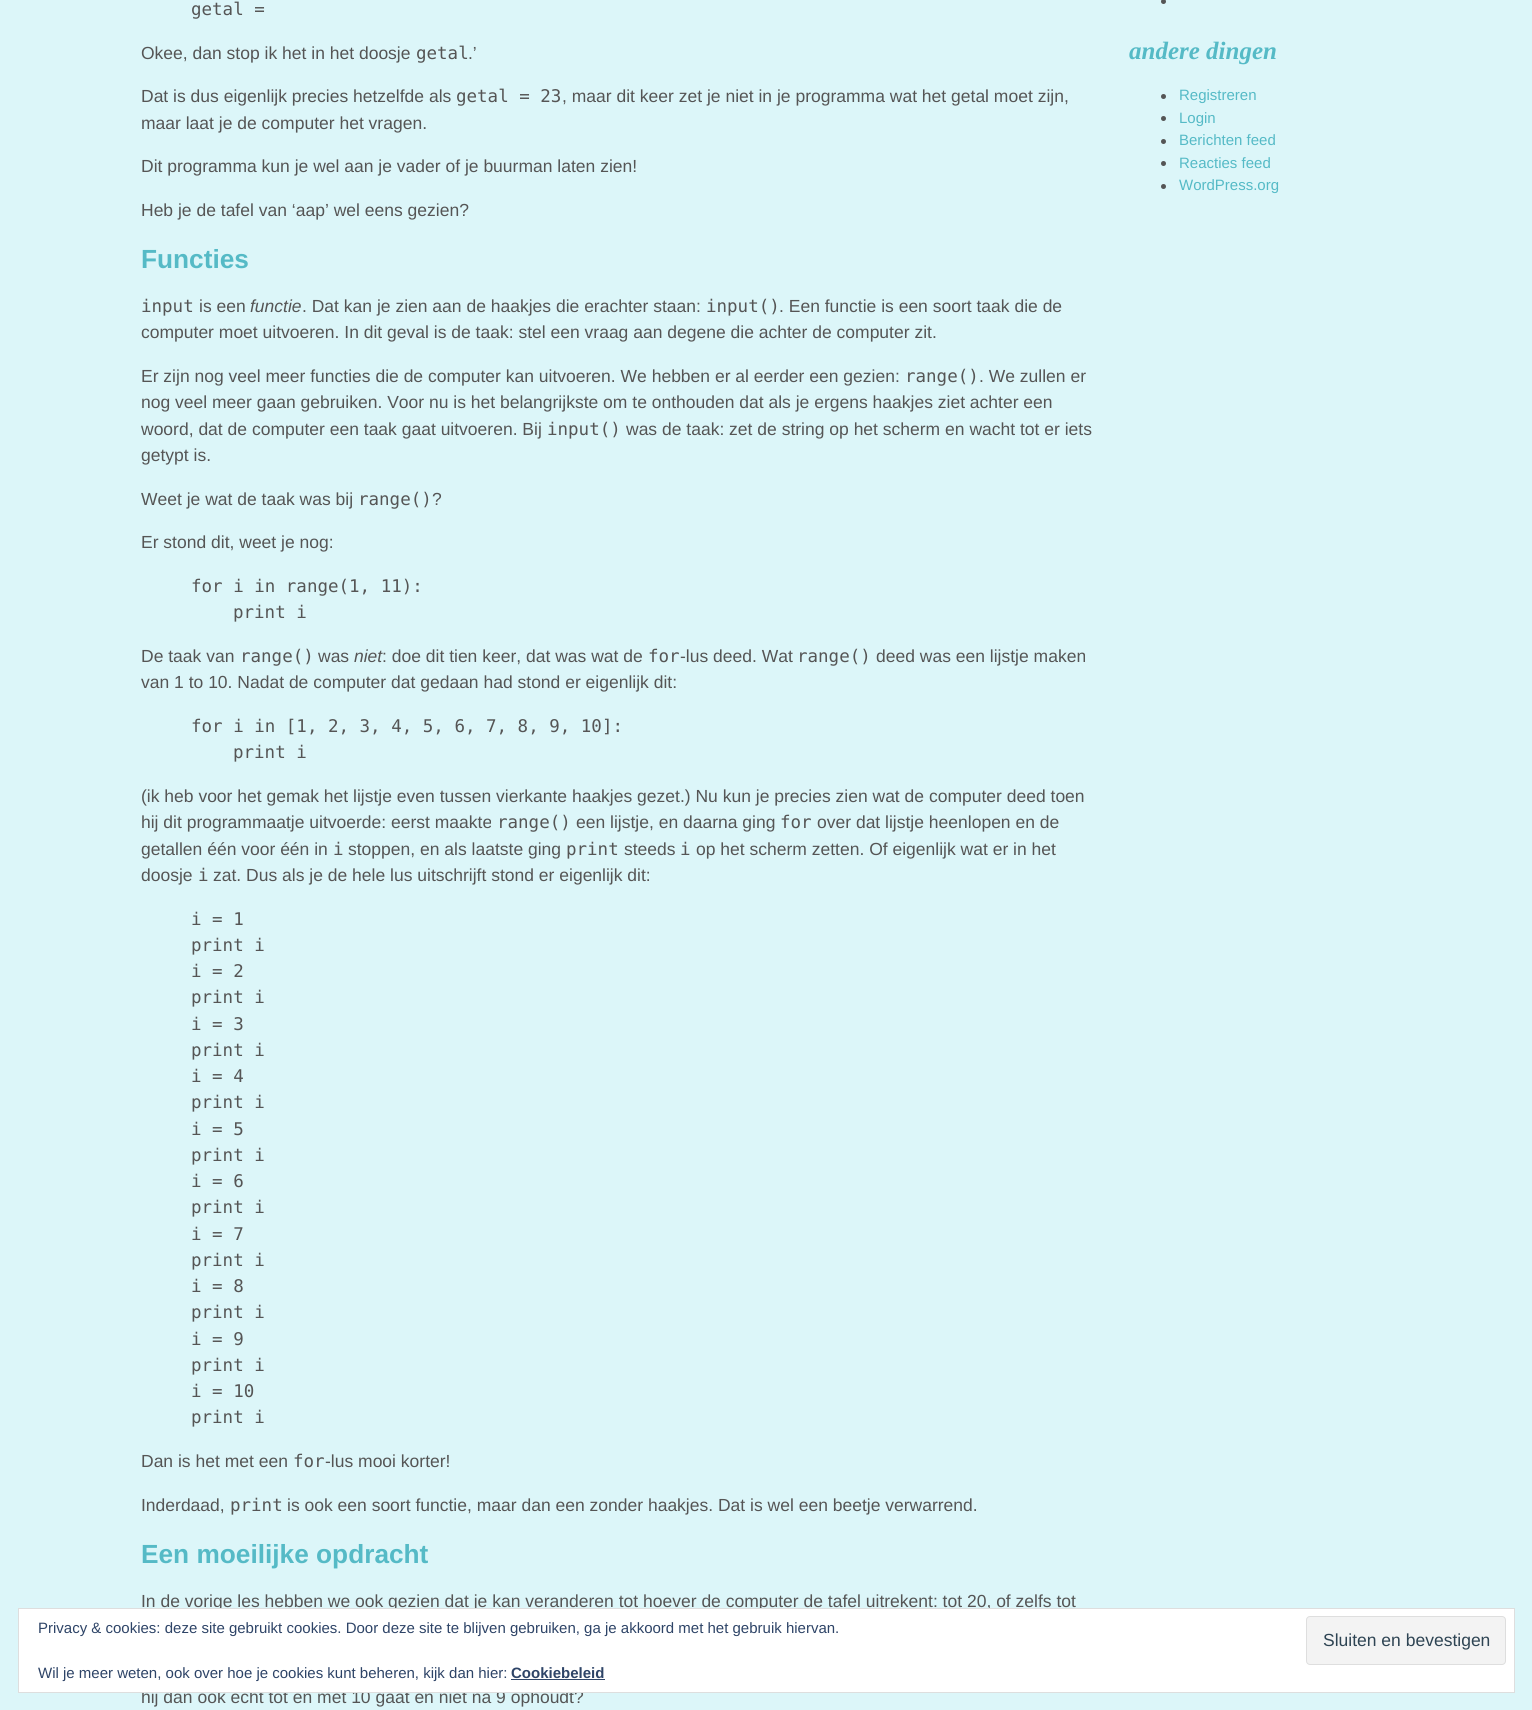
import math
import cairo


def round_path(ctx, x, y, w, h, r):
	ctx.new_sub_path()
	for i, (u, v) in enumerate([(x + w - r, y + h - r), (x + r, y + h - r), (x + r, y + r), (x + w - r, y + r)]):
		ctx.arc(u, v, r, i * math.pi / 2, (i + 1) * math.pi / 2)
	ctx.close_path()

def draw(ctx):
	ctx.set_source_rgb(0.863, 0.961, 0.973)
	ctx.paint()
	ctx.select_font_face('DejaVu Sans Mono')
	ctx.set_font_size(17.5)
	ctx.set_source_rgb(0.333, 0.333, 0.333)
	ctx.move_to(191, 15)
	ctx.show_text('getal =')
	ctx.select_font_face('Liberation Sans')
	ctx.move_to(141, 59)
	ctx.show_text('Okee, dan stop ik het in het doosje')
	ctx.select_font_face('DejaVu Sans Mono')
	ctx.move_to(416, 59)
	ctx.show_text('getal')
	ctx.select_font_face('Liberation Sans')
	ctx.move_to(468, 59)
	ctx.show_text('.’')
	ctx.move_to(141, 102)
	ctx.show_text('Dat is dus eigenlijk precies hetzelfde als')
	ctx.select_font_face('DejaVu Sans Mono')
	ctx.move_to(456, 102)
	ctx.show_text('getal = 23')
	ctx.select_font_face('Liberation Sans')
	for x, y, s in [
		(562, 102, ', maar dit keer zet je niet in je programma wat het getal moet zijn,'),
		(141, 129, 'maar laat je de computer het vragen.'),
		(141, 172, 'Dit programma kun je wel aan je vader of je buurman laten zien!'),
		(141, 216, 'Heb je de tafel van ‘aap’ wel eens gezien?'),
	]:
		ctx.move_to(x, y)
		ctx.show_text(s)
	ctx.select_font_face('Liberation Sans', cairo.FONT_SLANT_NORMAL, cairo.FONT_WEIGHT_BOLD)
	ctx.set_font_size(26.25)
	ctx.set_source_rgb(0.333, 0.729, 0.776)
	ctx.move_to(141, 268)
	ctx.show_text('Functies')
	ctx.select_font_face('DejaVu Sans Mono')
	ctx.set_font_size(17.5)
	ctx.set_source_rgb(0.333, 0.333, 0.333)
	ctx.move_to(141, 312)
	ctx.show_text('input')
	ctx.select_font_face('Liberation Sans')
	ctx.move_to(199, 312)
	ctx.show_text('is een')
	ctx.select_font_face('Liberation Sans', cairo.FONT_SLANT_ITALIC)
	ctx.move_to(250, 312)
	ctx.show_text('functie')
	ctx.select_font_face('Liberation Sans')
	ctx.move_to(302, 312)
	ctx.show_text('. Dat kan je zien aan de haakjes die erachter staan:')
	ctx.select_font_face('DejaVu Sans Mono')
	ctx.move_to(706, 312)
	ctx.show_text('input()')
	ctx.select_font_face('Liberation Sans')
	for x, y, s in [
		(779, 312, '. Een functie is een soort taak die de'),
		(141, 338, 'computer moet uitvoeren. In dit geval is de taak: stel een vraag aan degene die achter de computer zit.'),
		(141, 382, 'Er zijn nog veel meer functies die de computer kan uitvoeren. We hebben er al eerder een gezien:'),
	]:
		ctx.move_to(x, y)
		ctx.show_text(s)
	ctx.select_font_face('DejaVu Sans Mono')
	ctx.move_to(905, 382)
	ctx.show_text('range()')
	ctx.select_font_face('Liberation Sans')
	for x, y, s in [
		(979, 382, '. We zullen er'),
		(141, 408, 'nog veel meer gaan gebruiken. Voor nu is het belangrijkste om te onthouden dat als je ergens haakjes ziet achter een'),
		(141, 435, 'woord, dat de computer een taak gaat uitvoeren. Bij'),
	]:
		ctx.move_to(x, y)
		ctx.show_text(s)
	ctx.select_font_face('DejaVu Sans Mono')
	ctx.move_to(547, 435)
	ctx.show_text('input()')
	ctx.select_font_face('Liberation Sans')
	for x, y, s in [
		(626, 435, 'was de taak: zet de string op het scherm en wacht tot er iets'),
		(141, 461, 'getypt is.'),
		(141, 505, 'Weet je wat de taak was bij'),
	]:
		ctx.move_to(x, y)
		ctx.show_text(s)
	ctx.select_font_face('DejaVu Sans Mono')
	ctx.move_to(358, 505)
	ctx.show_text('range()')
	ctx.select_font_face('Liberation Sans')
	ctx.move_to(432, 505)
	ctx.show_text('?')
	ctx.move_to(141, 548)
	ctx.show_text('Er stond dit, weet je nog:')
	ctx.select_font_face('DejaVu Sans Mono')
	ctx.move_to(191, 592)
	ctx.show_text('for i in range(1, 11):')
	ctx.move_to(233, 618)
	ctx.show_text('print i')
	ctx.select_font_face('Liberation Sans')
	ctx.move_to(141, 662)
	ctx.show_text('De taak van')
	ctx.select_font_face('DejaVu Sans Mono')
	ctx.move_to(240, 662)
	ctx.show_text('range()')
	ctx.select_font_face('Liberation Sans')
	ctx.move_to(318, 662)
	ctx.show_text('was')
	ctx.select_font_face('Liberation Sans', cairo.FONT_SLANT_ITALIC)
	ctx.move_to(354, 662)
	ctx.show_text('niet')
	ctx.select_font_face('Liberation Sans')
	ctx.move_to(382, 662)
	ctx.show_text(': doe dit tien keer, dat was wat de')
	ctx.select_font_face('DejaVu Sans Mono')
	ctx.move_to(648, 662)
	ctx.show_text('for')
	ctx.select_font_face('Liberation Sans')
	ctx.move_to(680, 662)
	ctx.show_text('-lus deed. Wat')
	ctx.select_font_face('DejaVu Sans Mono')
	ctx.move_to(797, 662)
	ctx.show_text('range()')
	ctx.select_font_face('Liberation Sans')
	ctx.move_to(876, 662)
	ctx.show_text('deed was een lijstje maken')
	ctx.move_to(141, 688)
	ctx.show_text('van 1 to 10. Nadat de computer dat gedaan had stond er eigenlijk dit:')
	ctx.select_font_face('DejaVu Sans Mono')
	ctx.move_to(191, 732)
	ctx.show_text('for i in [1, 2, 3, 4, 5, 6, 7, 8, 9, 10]:')
	ctx.move_to(233, 758)
	ctx.show_text('print i')
	ctx.select_font_face('Liberation Sans')
	ctx.move_to(141, 802)
	ctx.show_text('(ik heb voor het gemak het lijstje even tussen vierkante haakjes gezet.) Nu kun je precies zien wat de computer deed toen')
	ctx.move_to(141, 828)
	ctx.show_text('hij dit programmaatje uitvoerde: eerst maakte')
	ctx.select_font_face('DejaVu Sans Mono')
	ctx.move_to(497, 828)
	ctx.show_text('range()')
	ctx.select_font_face('Liberation Sans')
	ctx.move_to(576, 828)
	ctx.show_text('een lijstje, en daarna ging')
	ctx.select_font_face('DejaVu Sans Mono')
	ctx.move_to(780, 828)
	ctx.show_text('for')
	ctx.select_font_face('Liberation Sans')
	ctx.move_to(817, 828)
	ctx.show_text('over dat lijstje heenlopen en de')
	ctx.move_to(141, 855)
	ctx.show_text('getallen één voor één in')
	ctx.select_font_face('DejaVu Sans Mono')
	ctx.move_to(333, 855)
	ctx.show_text('i')
	ctx.select_font_face('Liberation Sans')
	ctx.move_to(348, 855)
	ctx.show_text('stoppen, en als laatste ging')
	ctx.select_font_face('DejaVu Sans Mono')
	ctx.move_to(566, 855)
	ctx.show_text('print')
	ctx.select_font_face('Liberation Sans')
	ctx.move_to(624, 855)
	ctx.show_text('steeds')
	ctx.select_font_face('DejaVu Sans Mono')
	ctx.move_to(680, 855)
	ctx.show_text('i')
	ctx.select_font_face('Liberation Sans')
	ctx.move_to(696, 855)
	ctx.show_text('op het scherm zetten. Of eigenlijk wat er in het')
	ctx.move_to(141, 881)
	ctx.show_text('doosje')
	ctx.select_font_face('DejaVu Sans Mono')
	ctx.move_to(198, 881)
	ctx.show_text('i')
	ctx.select_font_face('Liberation Sans')
	ctx.move_to(213, 881)
	ctx.show_text('zat. Dus als je de hele lus uitschrijft stond er eigenlijk dit:')
	ctx.select_font_face('DejaVu Sans Mono')
	for x, y, s in [
		(191, 925, 'i = 1'),
		(191, 951, 'print i'),
		(191, 977, 'i = 2'),
		(191, 1003, 'print i'),
		(191, 1030, 'i = 3'),
		(191, 1056, 'print i'),
		(191, 1082, 'i = 4'),
		(191, 1108, 'print i'),
		(191, 1135, 'i = 5'),
		(191, 1161, 'print i'),
		(191, 1187, 'i = 6'),
		(191, 1213, 'print i'),
		(191, 1240, 'i = 7'),
		(191, 1266, 'print i'),
		(191, 1292, 'i = 8'),
		(191, 1318, 'print i'),
		(191, 1345, 'i = 9'),
		(191, 1371, 'print i'),
		(191, 1397, 'i = 10'),
		(191, 1423, 'print i'),
	]:
		ctx.move_to(x, y)
		ctx.show_text(s)
	ctx.select_font_face('Liberation Sans')
	ctx.move_to(141, 1467)
	ctx.show_text('Dan is het met een')
	ctx.select_font_face('DejaVu Sans Mono')
	ctx.move_to(293, 1467)
	ctx.show_text('for')
	ctx.select_font_face('Liberation Sans')
	ctx.move_to(325, 1467)
	ctx.show_text('-lus mooi korter!')
	ctx.move_to(141, 1511)
	ctx.show_text('Inderdaad,')
	ctx.select_font_face('DejaVu Sans Mono')
	ctx.move_to(230, 1511)
	ctx.show_text('print')
	ctx.select_font_face('Liberation Sans')
	ctx.move_to(287, 1511)
	ctx.show_text('is ook een soort functie, maar dan een zonder haakjes. Dat is wel een beetje verwarrend.')
	ctx.select_font_face('Liberation Sans', cairo.FONT_SLANT_NORMAL, cairo.FONT_WEIGHT_BOLD)
	ctx.set_font_size(26.25)
	ctx.set_source_rgb(0.333, 0.729, 0.776)
	ctx.move_to(141, 1563)
	ctx.show_text('Een moeilijke opdracht')
	ctx.select_font_face('Liberation Sans')
	ctx.set_font_size(17.5)
	ctx.set_source_rgb(0.333, 0.333, 0.333)
	ctx.move_to(141, 1607)
	ctx.show_text('In de vorige les hebben we ook gezien dat je kan veranderen tot hoever de computer de tafel uitrekent: tot 20, of zelfs tot')
	ctx.move_to(141, 1703)
	ctx.show_text('hij dan ook echt tot en met 10 gaat en niet na 9 ophoudt?')
	ctx.new_path()
	ctx.arc(1163.5, 1.5, 2.5, 0, 2 * math.pi)
	ctx.fill()
	ctx.select_font_face('Liberation Serif', cairo.FONT_SLANT_ITALIC, cairo.FONT_WEIGHT_BOLD)
	ctx.set_font_size(25)
	ctx.set_source_rgb(0.333, 0.729, 0.776)
	ctx.move_to(1129, 59)
	ctx.show_text('andere dingen')
	ctx.set_source_rgb(0.333, 0.333, 0.333)
	ctx.new_path()
	ctx.arc(1163.5, 96.5, 2.5, 0, 2 * math.pi)
	ctx.fill()
	ctx.select_font_face('Liberation Sans')
	ctx.set_font_size(15)
	ctx.set_source_rgb(0.333, 0.729, 0.776)
	ctx.move_to(1179, 100)
	ctx.show_text('Registreren')
	ctx.set_source_rgb(0.333, 0.333, 0.333)
	ctx.new_path()
	ctx.arc(1163.5, 118.5, 2.5, 0, 2 * math.pi)
	ctx.fill()
	ctx.set_source_rgb(0.333, 0.729, 0.776)
	ctx.move_to(1179, 123)
	ctx.show_text('Login')
	ctx.set_source_rgb(0.333, 0.333, 0.333)
	ctx.new_path()
	ctx.arc(1163.5, 141.5, 2.5, 0, 2 * math.pi)
	ctx.fill()
	ctx.set_source_rgb(0.333, 0.729, 0.776)
	ctx.move_to(1179, 145)
	ctx.show_text('Berichten feed')
	ctx.set_source_rgb(0.333, 0.333, 0.333)
	ctx.new_path()
	ctx.arc(1163.5, 163.5, 2.5, 0, 2 * math.pi)
	ctx.fill()
	ctx.set_source_rgb(0.333, 0.729, 0.776)
	ctx.move_to(1179, 168)
	ctx.show_text('Reacties feed')
	ctx.set_source_rgb(0.333, 0.333, 0.333)
	ctx.new_path()
	ctx.arc(1163.5, 186.5, 2.5, 0, 2 * math.pi)
	ctx.fill()
	ctx.set_source_rgb(0.333, 0.729, 0.776)
	ctx.move_to(1179, 190)
	ctx.show_text('WordPress.org')
	ctx.set_source_rgb(1, 1, 1)
	ctx.rectangle(18.5, 1608.5, 1496, 84)
	ctx.fill_preserve()
	ctx.set_source_rgb(0.871, 0.871, 0.871)
	ctx.set_line_width(1)
	ctx.stroke()
	ctx.set_source_rgb(0.18, 0.267, 0.404)
	ctx.move_to(38, 1633)
	ctx.show_text('Privacy & cookies: deze site gebruikt cookies. Door deze site te blijven gebruiken, ga je akkoord met het gebruik hiervan.')
	ctx.set_source_rgb(0.953, 0.953, 0.953)
	round_path(ctx, 1306.5, 1616.5, 199, 48, 3.5)
	ctx.fill_preserve()
	ctx.set_source_rgb(0.871, 0.871, 0.871)
	ctx.stroke()
	ctx.set_font_size(17.5)
	ctx.set_source_rgb(0.18, 0.267, 0.325)
	ctx.move_to(1323, 1646)
	ctx.show_text('Sluiten en bevestigen')
	ctx.set_font_size(15)
	ctx.set_source_rgb(0.18, 0.267, 0.404)
	ctx.move_to(38, 1678)
	ctx.show_text('Wil je meer weten, ook over hoe je cookies kunt beheren, kijk dan hier:')
	ctx.select_font_face('Liberation Sans', cairo.FONT_SLANT_NORMAL, cairo.FONT_WEIGHT_BOLD)
	ctx.move_to(511, 1678)
	ctx.show_text('Cookiebeleid')
	ctx.rectangle(511, 1679, 94, 1)
	ctx.fill()


surface = cairo.ImageSurface(cairo.FORMAT_RGB24, 1532, 1710)
ctx = cairo.Context(surface)
options = cairo.FontOptions()
options.set_hint_metrics(cairo.HINT_METRICS_OFF)
options.set_hint_style(cairo.HINT_STYLE_NONE)
ctx.set_font_options(options)
ctx.set_miter_limit(4)
draw(ctx)
surface.write_to_png('image.png')
